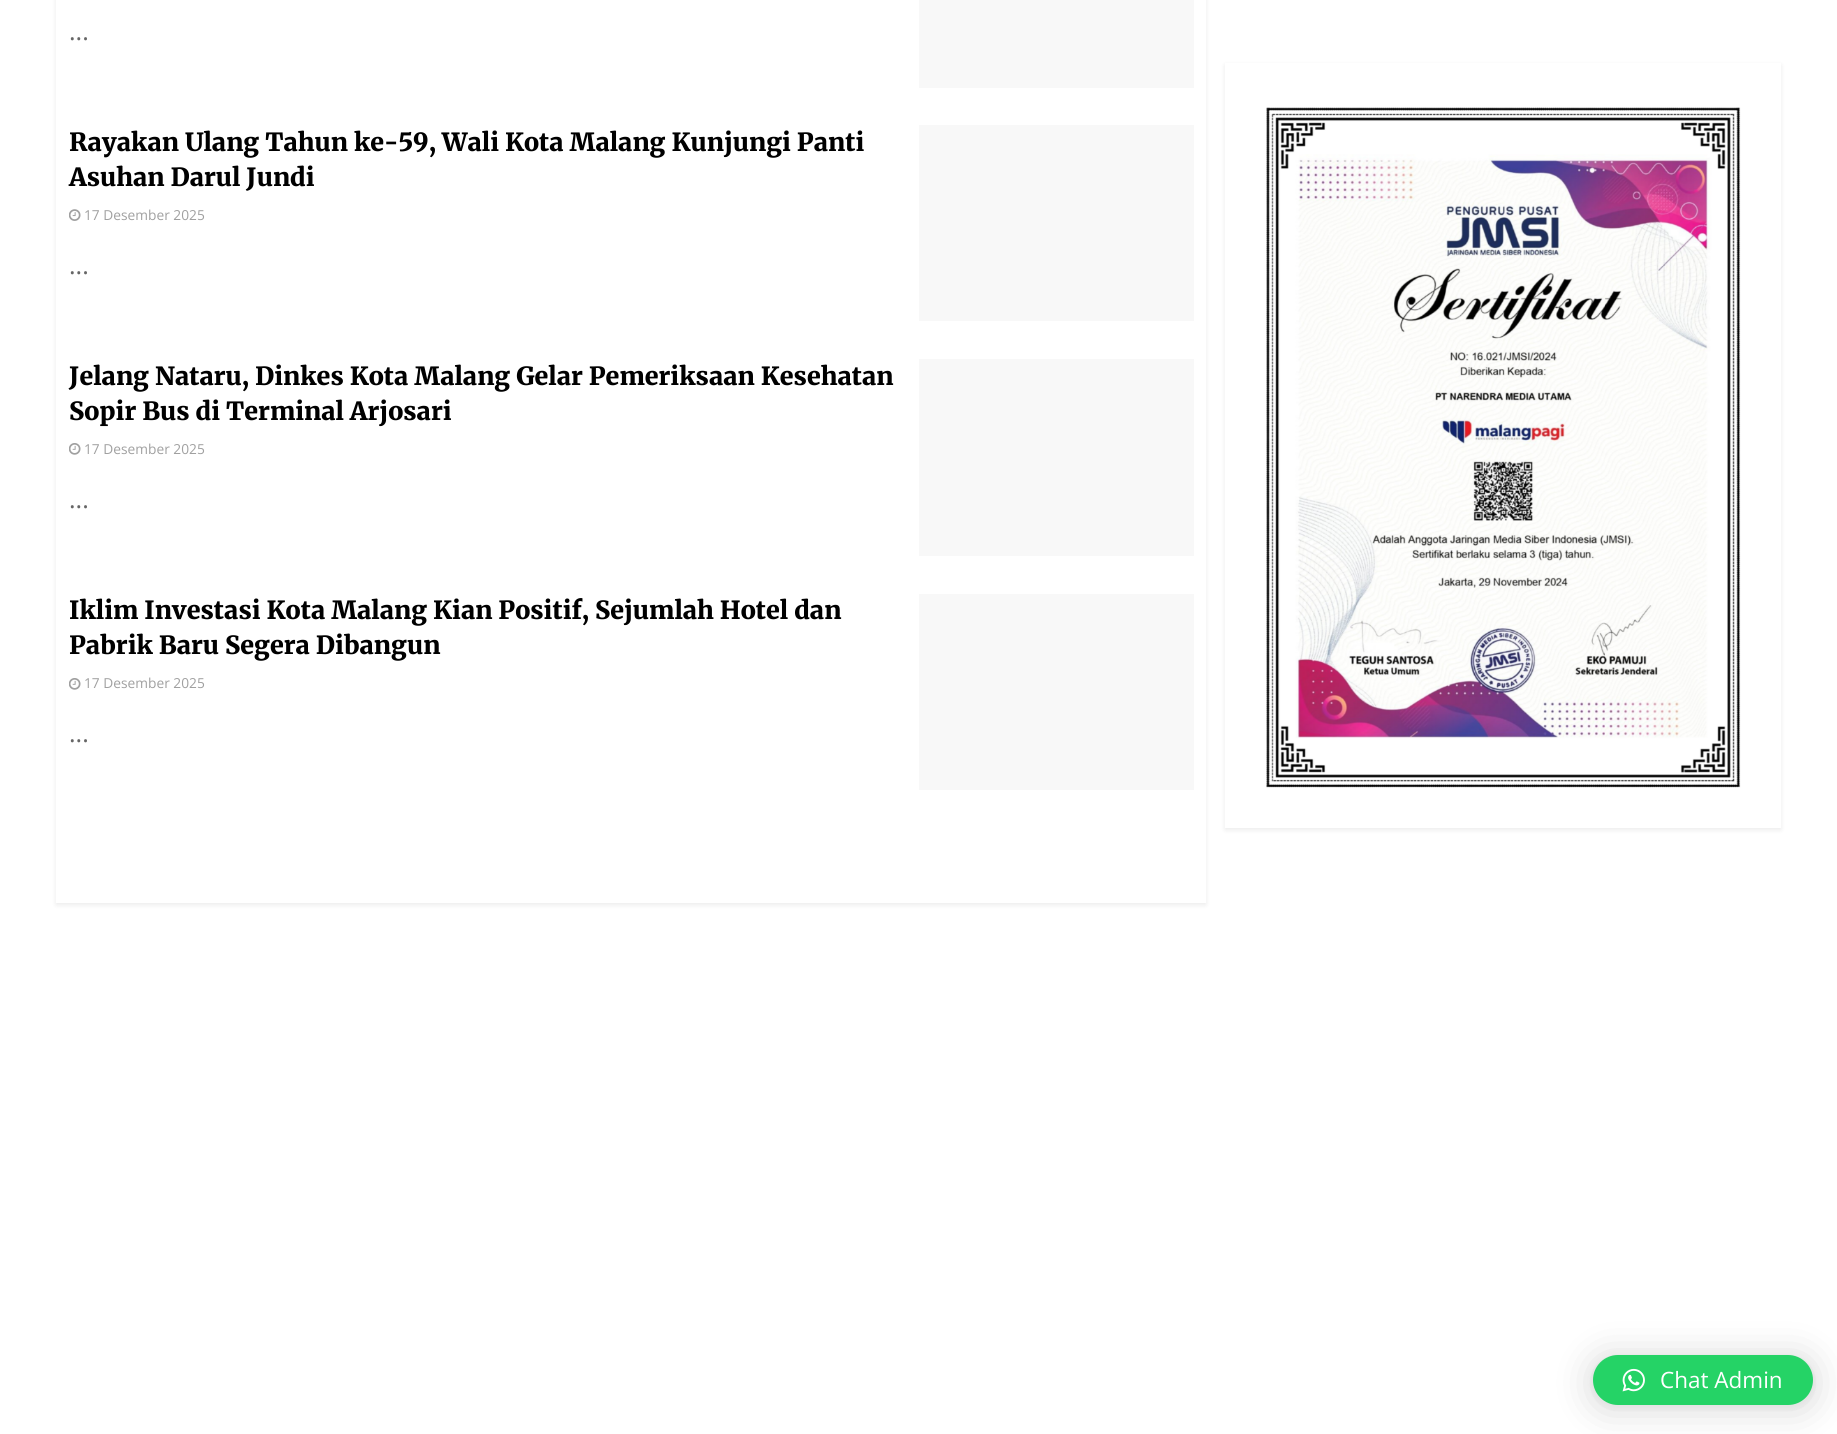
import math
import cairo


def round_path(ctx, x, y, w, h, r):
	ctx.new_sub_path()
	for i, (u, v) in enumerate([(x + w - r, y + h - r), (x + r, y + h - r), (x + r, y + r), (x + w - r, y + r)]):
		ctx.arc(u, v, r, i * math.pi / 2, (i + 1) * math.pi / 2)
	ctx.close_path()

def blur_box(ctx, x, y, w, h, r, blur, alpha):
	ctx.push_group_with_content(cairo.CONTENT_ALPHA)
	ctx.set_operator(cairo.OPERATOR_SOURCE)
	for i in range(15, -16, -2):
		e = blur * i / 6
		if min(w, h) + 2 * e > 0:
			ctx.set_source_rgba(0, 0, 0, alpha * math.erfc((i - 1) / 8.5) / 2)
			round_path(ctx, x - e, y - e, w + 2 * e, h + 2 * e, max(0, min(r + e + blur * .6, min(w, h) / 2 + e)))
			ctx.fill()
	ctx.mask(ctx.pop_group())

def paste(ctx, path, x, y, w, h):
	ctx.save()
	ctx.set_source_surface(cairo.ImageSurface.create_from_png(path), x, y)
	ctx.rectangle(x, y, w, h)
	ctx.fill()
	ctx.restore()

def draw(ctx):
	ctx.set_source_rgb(1, 1, 1)
	ctx.paint()
	ctx.set_source_rgb(0, 0, 0)
	blur_box(ctx, 56, -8, 1150, 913, 0, 2.5, 0.08)
	ctx.set_source_rgb(1, 1, 1)
	ctx.rectangle(56, 0, 1150, 903)
	ctx.fill()
	ctx.select_font_face('Open Sans')
	ctx.set_font_size(25)
	ctx.set_source_rgb(0.4, 0.4, 0.4)
	ctx.move_to(69, 40)
	ctx.show_text('...')
	ctx.set_source_rgb(0.969, 0.969, 0.969)
	ctx.rectangle(919, 0, 275, 88)
	ctx.fill()
	ctx.select_font_face('Merriweather Light')
	ctx.set_source_rgb(0, 0, 0)
	ctx.move_to(69, 151)
	ctx.show_text('Rayakan Ulang Tahun ke-59, Wali Kota Malang Kunjungi Panti')
	ctx.move_to(69, 186)
	ctx.show_text('Asuhan Darul Jundi')
	paste(ctx, 'media/1.png', 69, 209, 12, 12)
	ctx.select_font_face('Open Sans')
	ctx.set_font_size(13.75)
	ctx.set_source_rgb(0.627, 0.627, 0.627)
	ctx.move_to(84, 220)
	ctx.show_text('17 Desember 2025')
	ctx.set_font_size(25)
	ctx.set_source_rgb(0.4, 0.4, 0.4)
	ctx.move_to(69, 274)
	ctx.show_text('...')
	ctx.set_source_rgb(0.969, 0.969, 0.969)
	ctx.rectangle(919, 125, 275, 196)
	ctx.fill()
	ctx.select_font_face('Merriweather Light')
	ctx.set_source_rgb(0, 0, 0)
	ctx.move_to(69, 385)
	ctx.show_text('Jelang Nataru, Dinkes Kota Malang Gelar Pemeriksaan Kesehatan')
	ctx.move_to(69, 420)
	ctx.show_text('Sopir Bus di Terminal Arjosari')
	paste(ctx, 'media/2.png', 69, 443, 12, 12)
	ctx.select_font_face('Open Sans')
	ctx.set_font_size(13.75)
	ctx.set_source_rgb(0.627, 0.627, 0.627)
	ctx.move_to(84, 454)
	ctx.show_text('17 Desember 2025')
	ctx.set_font_size(25)
	ctx.set_source_rgb(0.4, 0.4, 0.4)
	ctx.move_to(69, 508)
	ctx.show_text('...')
	ctx.set_source_rgb(0.969, 0.969, 0.969)
	ctx.rectangle(919, 359, 275, 197)
	ctx.fill()
	ctx.select_font_face('Merriweather Light')
	ctx.set_source_rgb(0, 0, 0)
	ctx.move_to(69, 619)
	ctx.show_text('Iklim Investasi Kota Malang Kian Positif, Sejumlah Hotel dan')
	ctx.move_to(69, 654)
	ctx.show_text('Pabrik Baru Segera Dibangun')
	paste(ctx, 'media/2.png', 69, 678, 12, 12)
	ctx.select_font_face('Open Sans')
	ctx.set_font_size(13.75)
	ctx.set_source_rgb(0.627, 0.627, 0.627)
	ctx.move_to(84, 688)
	ctx.show_text('17 Desember 2025')
	ctx.set_font_size(25)
	ctx.set_source_rgb(0.4, 0.4, 0.4)
	ctx.move_to(69, 742)
	ctx.show_text('...')
	ctx.set_source_rgb(0.969, 0.969, 0.969)
	ctx.rectangle(919, 594, 275, 196)
	ctx.fill()
	ctx.set_source_rgb(0, 0, 0)
	blur_box(ctx, 1225, 65, 556, 765, 0, 2.5, 0.08)
	ctx.set_source_rgb(1, 1, 1)
	ctx.rectangle(1225, 63, 556, 765)
	ctx.fill()
	paste(ctx, 'media/3.png', 1266, 107, 475, 681)
	ctx.set_source_rgb(0, 0, 0)
	blur_box(ctx, 1593, 1358, 220, 50, 25, 20, 0.16)
	blur_box(ctx, 1593, 1356, 220, 50, 25, 4, 0.06)
	ctx.set_source_rgb(0.145, 0.827, 0.4)
	round_path(ctx, 1593, 1355, 220, 50, 25)
	ctx.fill()
	paste(ctx, 'media/4.png', 1622, 1368, 23, 24)
	ctx.set_font_size(22.5)
	ctx.set_source_rgb(1, 1, 1)
	ctx.move_to(1660, 1388)
	ctx.show_text('Chat Admin')


surface = cairo.ImageSurface(cairo.FORMAT_RGB24, 1837, 1434)
ctx = cairo.Context(surface)
options = cairo.FontOptions()
options.set_hint_metrics(cairo.HINT_METRICS_OFF)
options.set_hint_style(cairo.HINT_STYLE_NONE)
ctx.set_font_options(options)
ctx.set_miter_limit(4)
draw(ctx)
surface.write_to_png('image.png')
